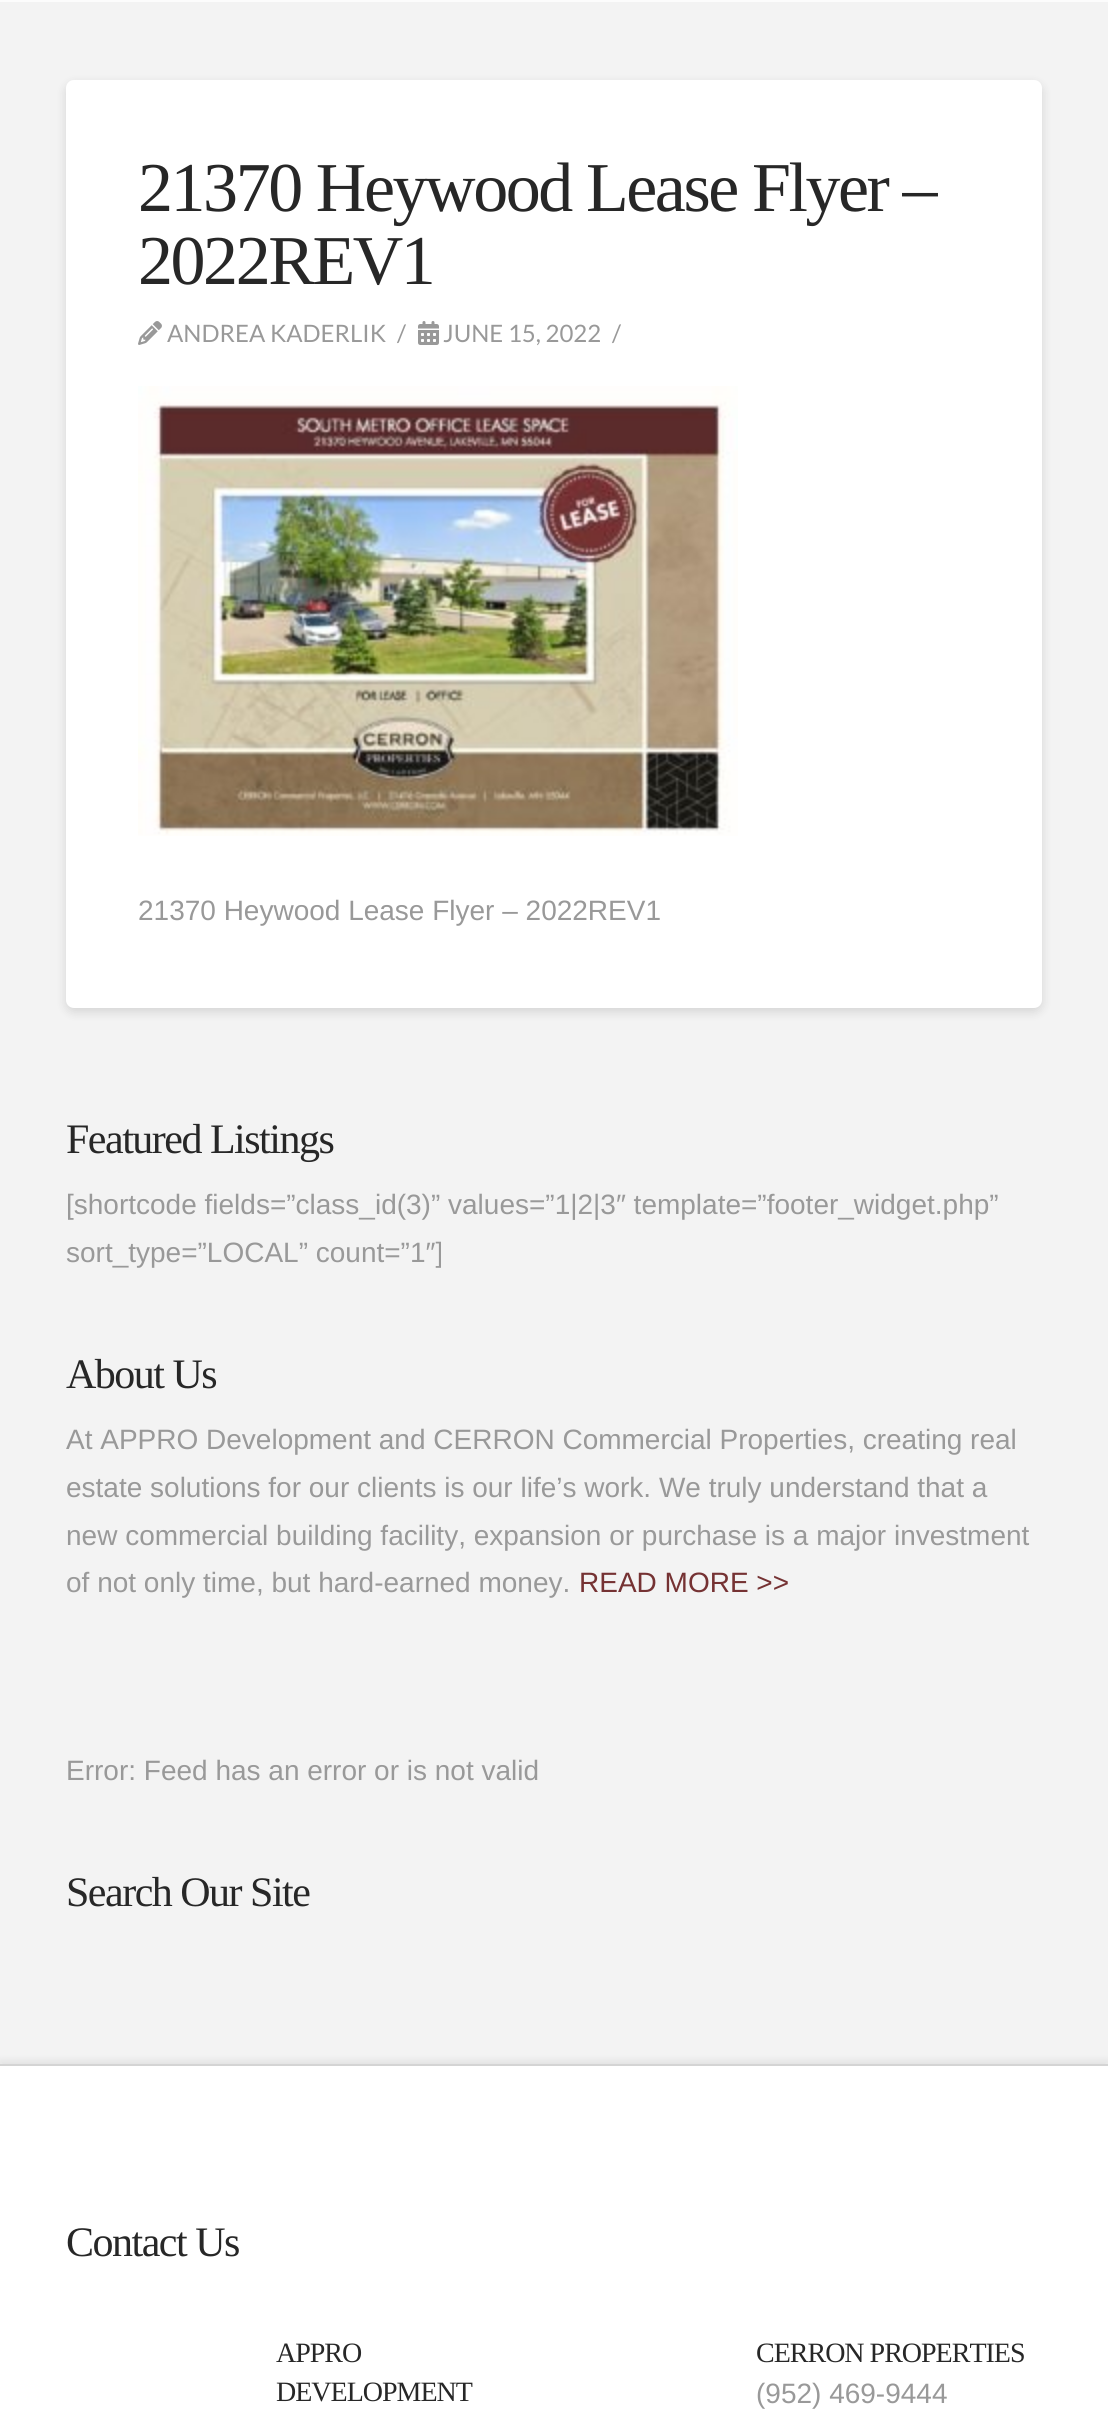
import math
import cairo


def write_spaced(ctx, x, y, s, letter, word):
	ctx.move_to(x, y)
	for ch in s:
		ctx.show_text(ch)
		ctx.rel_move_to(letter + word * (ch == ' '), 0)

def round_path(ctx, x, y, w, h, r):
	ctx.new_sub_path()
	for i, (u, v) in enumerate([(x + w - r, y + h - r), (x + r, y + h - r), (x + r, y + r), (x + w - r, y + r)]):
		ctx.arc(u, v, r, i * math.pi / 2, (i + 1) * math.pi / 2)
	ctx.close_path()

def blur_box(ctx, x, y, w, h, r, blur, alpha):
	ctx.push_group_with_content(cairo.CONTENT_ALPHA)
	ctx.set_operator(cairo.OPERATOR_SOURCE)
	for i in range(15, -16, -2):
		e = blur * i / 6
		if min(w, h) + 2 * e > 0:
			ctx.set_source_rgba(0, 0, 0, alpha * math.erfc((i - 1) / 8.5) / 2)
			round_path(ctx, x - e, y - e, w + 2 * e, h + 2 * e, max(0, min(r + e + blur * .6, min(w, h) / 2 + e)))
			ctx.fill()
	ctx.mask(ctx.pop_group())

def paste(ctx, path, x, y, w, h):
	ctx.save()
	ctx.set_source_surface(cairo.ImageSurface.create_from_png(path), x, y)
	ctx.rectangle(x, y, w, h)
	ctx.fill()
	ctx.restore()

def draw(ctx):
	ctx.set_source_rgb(0.953, 0.953, 0.953)
	ctx.paint()
	ctx.set_source_rgb(0.988, 0.988, 0.988)
	ctx.rectangle(0, 0, 1108, 2)
	ctx.fill()
	ctx.set_source_rgb(0, 0, 0)
	blur_box(ctx, 66, 84, 976, 928, 8, 5, 0.13)
	ctx.set_source_rgb(1, 1, 1)
	round_path(ctx, 66, 80, 976, 928, 8)
	ctx.fill()
	ctx.select_font_face('Liberation Serif')
	ctx.set_font_size(70)
	ctx.set_source_rgb(0.153, 0.153, 0.153)
	write_spaced(ctx, 138, 211, '21370 Heywood Lease Flyer –', -2.45, 0)
	write_spaced(ctx, 138, 284, '2022REV1', -2.45, 0)
	paste(ctx, 'media/1.png', 138, 321, 24, 24)
	ctx.select_font_face('Lato')
	ctx.set_font_size(24)
	ctx.set_source_rgb(0.6, 0.6, 0.6)
	ctx.move_to(167, 342)
	ctx.show_text('ANDREA KADERLIK')
	ctx.move_to(397, 342)
	ctx.show_text('/')
	paste(ctx, 'media/2.png', 418, 321, 21, 24)
	ctx.move_to(443, 342)
	ctx.show_text('JUNE 15, 2022')
	ctx.move_to(612, 342)
	ctx.show_text('/')
	paste(ctx, 'media/3.png', 138, 386, 600, 450)
	ctx.select_font_face('Liberation Sans')
	ctx.set_font_size(28)
	ctx.move_to(138, 920)
	ctx.show_text('21370 Heywood Lease Flyer – 2022REV1')
	ctx.select_font_face('Liberation Serif')
	ctx.set_font_size(42)
	ctx.set_source_rgb(0.153, 0.153, 0.153)
	write_spaced(ctx, 66, 1153, 'Featured Listings', -1.5, 0)
	ctx.select_font_face('Liberation Sans')
	ctx.set_font_size(28)
	ctx.set_source_rgb(0.6, 0.6, 0.6)
	ctx.move_to(66, 1214)
	ctx.show_text('[shortcode fields=”class_id(3)” values=”1|2|3″ template=”footer_widget.php”')
	ctx.move_to(66, 1262)
	ctx.show_text('sort_type=”LOCAL” count=”1″]')
	ctx.select_font_face('Liberation Serif')
	ctx.set_font_size(42)
	ctx.set_source_rgb(0.153, 0.153, 0.153)
	write_spaced(ctx, 66, 1388, 'About Us', -1.5, 0)
	ctx.select_font_face('Liberation Sans')
	ctx.set_font_size(28)
	ctx.set_source_rgb(0.6, 0.6, 0.6)
	for x, y, s in [
		(66, 1449, 'At APPRO Development and CERRON Commercial Properties, creating real'),
		(66, 1497, 'estate solutions for our clients is our life’s work. We truly understand that a'),
		(66, 1545, 'new commercial building facility, expansion or purchase is a major investment'),
		(66, 1592, 'of not only time, but hard-earned money.'),
	]:
		ctx.move_to(x, y)
		ctx.show_text(s)
	ctx.set_source_rgb(0.459, 0.196, 0.2)
	ctx.move_to(579, 1592)
	ctx.show_text('READ MORE >>')
	ctx.set_source_rgb(0.6, 0.6, 0.6)
	ctx.move_to(66, 1780)
	ctx.show_text('Error: Feed has an error or is not valid')
	ctx.select_font_face('Liberation Serif')
	ctx.set_font_size(42)
	ctx.set_source_rgb(0.153, 0.153, 0.153)
	write_spaced(ctx, 66, 1906, 'Search Our Site', -1.5, 0)
	ctx.set_source_rgb(0, 0, 0)
	blur_box(ctx, 0, 2060, 1108, 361, 0, 3.5, 0.07)
	ctx.set_source_rgb(1, 1, 1)
	ctx.rectangle(0, 2066, 1108, 344)
	ctx.fill()
	ctx.set_source_rgb(0.831, 0.831, 0.831)
	ctx.rectangle(0, 2064, 1108, 2)
	ctx.fill()
	ctx.set_source_rgb(0.153, 0.153, 0.153)
	write_spaced(ctx, 66, 2256, 'Contact Us', -1.5, 0)
	ctx.set_font_size(28)
	for x, y, s in [
		(276, 2362, 'APPRO'),
		(276, 2401, 'DEVELOPMENT'),
		(756, 2362, 'CERRON PROPERTIES'),
	]:
		write_spaced(ctx, x, y, s, -1, 0)
	ctx.select_font_face('Liberation Sans')
	ctx.set_source_rgb(0.6, 0.6, 0.6)
	ctx.move_to(756, 2403)
	ctx.show_text('(952) 469-9444')


surface = cairo.ImageSurface(cairo.FORMAT_RGB24, 1108, 2410)
ctx = cairo.Context(surface)
options = cairo.FontOptions()
options.set_hint_metrics(cairo.HINT_METRICS_OFF)
options.set_hint_style(cairo.HINT_STYLE_NONE)
ctx.set_font_options(options)
ctx.set_miter_limit(4)
draw(ctx)
surface.write_to_png('image.png')
